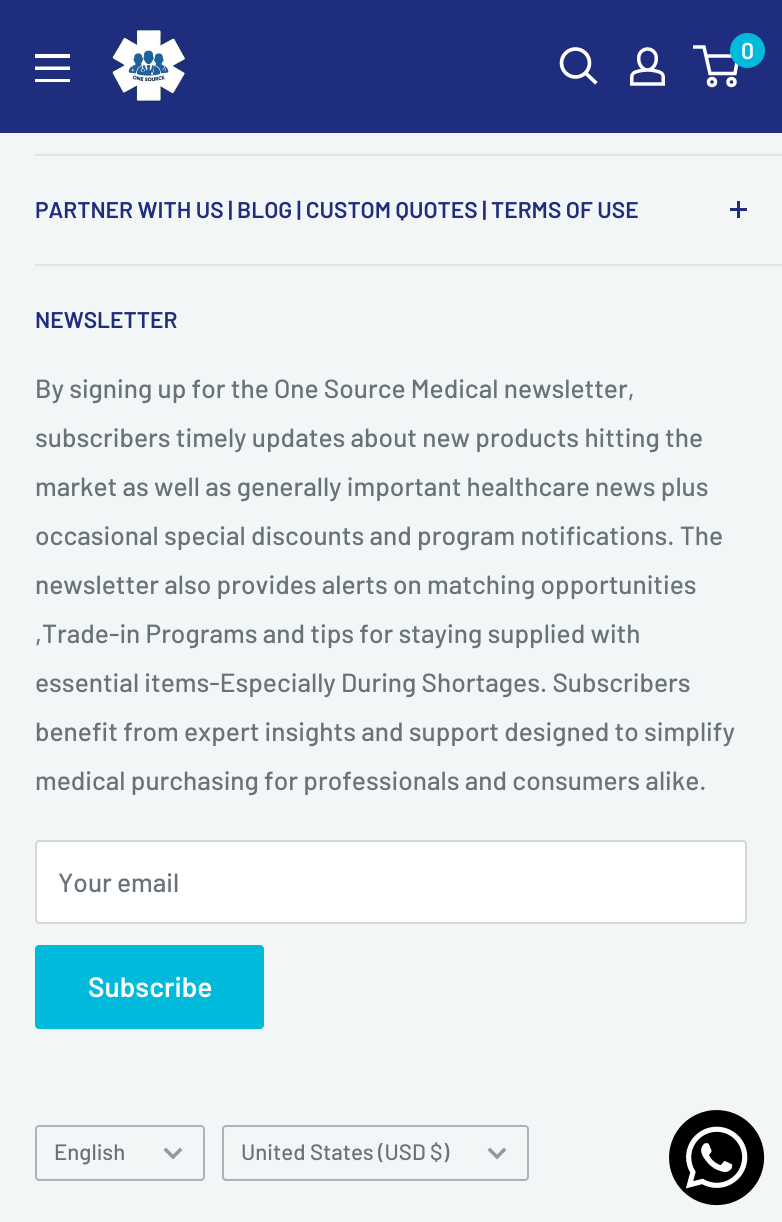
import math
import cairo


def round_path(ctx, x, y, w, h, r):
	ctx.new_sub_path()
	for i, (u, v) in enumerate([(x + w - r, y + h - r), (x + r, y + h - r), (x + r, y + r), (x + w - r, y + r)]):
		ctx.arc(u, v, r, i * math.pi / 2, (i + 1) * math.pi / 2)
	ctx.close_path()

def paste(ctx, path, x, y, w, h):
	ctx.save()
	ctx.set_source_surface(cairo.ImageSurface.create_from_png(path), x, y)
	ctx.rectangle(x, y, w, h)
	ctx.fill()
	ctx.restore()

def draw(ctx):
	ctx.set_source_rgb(0.953, 0.961, 0.965)
	ctx.paint()
	ctx.set_source_rgb(0.118, 0.176, 0.49)
	ctx.rectangle(0, 0, 782, 133)
	ctx.fill()
	paste(ctx, 'media/1.png', 111, 29, 75, 73)
	ctx.new_path()
	ctx.move_to(595, 82)
	ctx.line_to(585.5, 73)
	ctx.set_source_rgb(1, 1, 1)
	ctx.set_line_width(3.7)
	ctx.set_line_cap(cairo.LINE_CAP_SQUARE)
	ctx.stroke()
	ctx.arc(575.5, 63, 14, 0, 2 * math.pi)
	ctx.set_line_cap(cairo.LINE_CAP_BUTT)
	ctx.stroke()
	paste(ctx, 'media/2.png', 630, 47, 35, 39)
	ctx.arc(712, 82, 3.5, 0, 2 * math.pi)
	ctx.set_line_width(3.5)
	ctx.stroke()
	ctx.arc(731.5, 82, 3.5, 0, 2 * math.pi)
	ctx.stroke()
	ctx.new_path()
	ctx.move_to(706, 56)
	ctx.line_to(738, 56)
	ctx.line_to(735, 73.5)
	ctx.line_to(710, 73.5)
	ctx.line_to(704, 47)
	ctx.line_to(693, 47)
	ctx.stroke()
	ctx.set_source_rgb(0, 0.729, 0.859)
	ctx.arc(747.5, 50.5, 17.5, 0, 2 * math.pi)
	ctx.fill()
	ctx.select_font_face('Barlow SemiBold')
	ctx.set_font_size(23)
	ctx.set_source_rgb(1, 1, 1)
	ctx.move_to(741, 59)
	ctx.show_text('0')
	ctx.set_fill_rule(cairo.FILL_RULE_EVEN_ODD)
	ctx.new_path()
	ctx.move_to(35, 79)
	ctx.line_to(70, 79)
	ctx.line_to(70, 82)
	ctx.line_to(35, 82)
	ctx.close_path()
	ctx.move_to(35, 54)
	ctx.line_to(70, 54)
	ctx.line_to(70, 58)
	ctx.line_to(35, 58)
	ctx.close_path()
	ctx.move_to(35, 66.5)
	ctx.line_to(70, 66.5)
	ctx.line_to(70, 70)
	ctx.line_to(35, 70)
	ctx.close_path()
	ctx.fill()
	ctx.set_source_rgb(0.882, 0.89, 0.894)
	ctx.rectangle(35, 154, 747, 2)
	ctx.fill()
	ctx.rectangle(35, 264, 747, 2)
	ctx.fill()
	ctx.set_font_size(22.75)
	ctx.set_source_rgb(0.118, 0.176, 0.49)
	ctx.move_to(35, 218)
	ctx.show_text('PARTNER WITH US | BLOG | CUSTOM QUOTES | TERMS OF USE')
	ctx.rectangle(737, 201, 3, 17)
	ctx.fill()
	ctx.rectangle(730, 208, 17, 3)
	ctx.fill()
	ctx.move_to(35, 328)
	ctx.show_text('NEWSLETTER')
	ctx.select_font_face('Barlow Medium')
	ctx.set_font_size(26.25)
	ctx.set_source_rgb(0.404, 0.447, 0.475)
	for x, y, s in [
		(35, 398, 'By signing up for the One Source Medical newsletter,'),
		(35, 447, 'subscribers timely updates about new products hitting the'),
		(35, 496, 'market as well as generally important healthcare news plus'),
		(35, 545, 'occasional special discounts and program notifications. The'),
		(35, 594, 'newsletter also provides alerts on matching opportunities'),
		(35, 643, ',Trade-in Programs and tips for staying supplied with'),
		(35, 692, 'essential items-Especially During Shortages. Subscribers'),
		(35, 741, 'benefit from expert insights and support designed to simplify'),
		(35, 790, 'medical purchasing for professionals and consumers alike.'),
	]:
		ctx.move_to(x, y)
		ctx.show_text(s)
	ctx.set_source_rgb(1, 1, 1)
	round_path(ctx, 35, 840, 712, 84, 4)
	ctx.fill()
	ctx.set_source_rgb(0.973, 0.973, 0.973)
	ctx.set_fill_rule(cairo.FILL_RULE_WINDING)
	ctx.new_path()
	ctx.move_to(38, 844)
	ctx.line_to(744, 844)
	ctx.curve_to(745, 844, 746, 844, 746, 845)
	ctx.curve_to(746, 844, 746, 842, 744, 842)
	ctx.line_to(39, 842)
	ctx.curve_to(37, 842, 37, 844, 37, 845)
	ctx.close_path()
	ctx.fill()
	round_path(ctx, 36, 841, 710, 82, 3)
	ctx.set_source_rgb(0.831, 0.839, 0.847)
	ctx.set_line_width(2)
	ctx.stroke()
	ctx.set_source_rgb(0.404, 0.447, 0.475)
	ctx.move_to(58, 892)
	ctx.show_text('Your email')
	ctx.set_source_rgb(0, 0.729, 0.859)
	round_path(ctx, 35, 945, 229, 84, 4)
	ctx.fill()
	ctx.select_font_face('Barlow SemiBold')
	ctx.set_font_size(28)
	ctx.set_source_rgb(1, 1, 1)
	ctx.move_to(88, 997)
	ctx.show_text('Subscribe')
	ctx.set_source_rgb(0.933, 0.941, 0.945)
	ctx.new_path()
	ctx.move_to(37, 1176)
	ctx.curve_to(37, 1178, 37, 1180, 39, 1180)
	ctx.line_to(201, 1180)
	ctx.curve_to(203, 1180, 203, 1178, 203, 1176)
	ctx.curve_to(203, 1177, 202, 1178, 201, 1178)
	ctx.line_to(38, 1178)
	ctx.close_path()
	ctx.fill()
	round_path(ctx, 36, 1126, 168, 54, 3)
	ctx.set_source_rgba(0.404, 0.447, 0.475, 0.5)
	ctx.stroke()
	ctx.select_font_face('Barlow Medium')
	ctx.set_font_size(22.25)
	ctx.set_source_rgb(0.404, 0.447, 0.475)
	ctx.move_to(54, 1160)
	ctx.show_text('English')
	ctx.new_path()
	ctx.move_to(180, 1150)
	ctx.line_to(173, 1157)
	ctx.line_to(166, 1150)
	ctx.set_source_rgb(0.569, 0.6, 0.624)
	ctx.set_line_width(3.5)
	ctx.set_line_cap(cairo.LINE_CAP_SQUARE)
	ctx.stroke()
	ctx.set_source_rgb(0.933, 0.941, 0.945)
	ctx.new_path()
	ctx.move_to(224, 1176)
	ctx.line_to(224, 1178)
	ctx.curve_to(224, 1179, 225, 1180, 226, 1180)
	ctx.line_to(525, 1180)
	ctx.curve_to(526, 1180, 527, 1179, 527, 1178)
	ctx.line_to(527, 1176)
	ctx.curve_to(527, 1177, 526, 1178, 525, 1178)
	ctx.line_to(226, 1178)
	ctx.curve_to(225, 1178, 224, 1177, 224, 1176)
	ctx.close_path()
	ctx.fill()
	round_path(ctx, 223, 1126, 305, 54, 3)
	ctx.set_source_rgba(0.404, 0.447, 0.475, 0.5)
	ctx.set_line_width(2)
	ctx.set_line_cap(cairo.LINE_CAP_BUTT)
	ctx.stroke()
	ctx.set_source_rgb(0.404, 0.447, 0.475)
	ctx.move_to(241, 1160)
	ctx.show_text('United States (USD $)')
	ctx.new_path()
	ctx.move_to(504, 1150)
	ctx.line_to(497, 1157)
	ctx.line_to(490, 1150)
	ctx.set_source_rgb(0.569, 0.6, 0.624)
	ctx.set_line_width(3.5)
	ctx.set_line_cap(cairo.LINE_CAP_SQUARE)
	ctx.stroke()
	paste(ctx, 'media/3.png', 669, 1110, 96, 96)


surface = cairo.ImageSurface(cairo.FORMAT_RGB24, 782, 1222)
ctx = cairo.Context(surface)
options = cairo.FontOptions()
options.set_hint_metrics(cairo.HINT_METRICS_OFF)
options.set_hint_style(cairo.HINT_STYLE_NONE)
ctx.set_font_options(options)
ctx.set_miter_limit(4)
draw(ctx)
surface.write_to_png('image.png')
